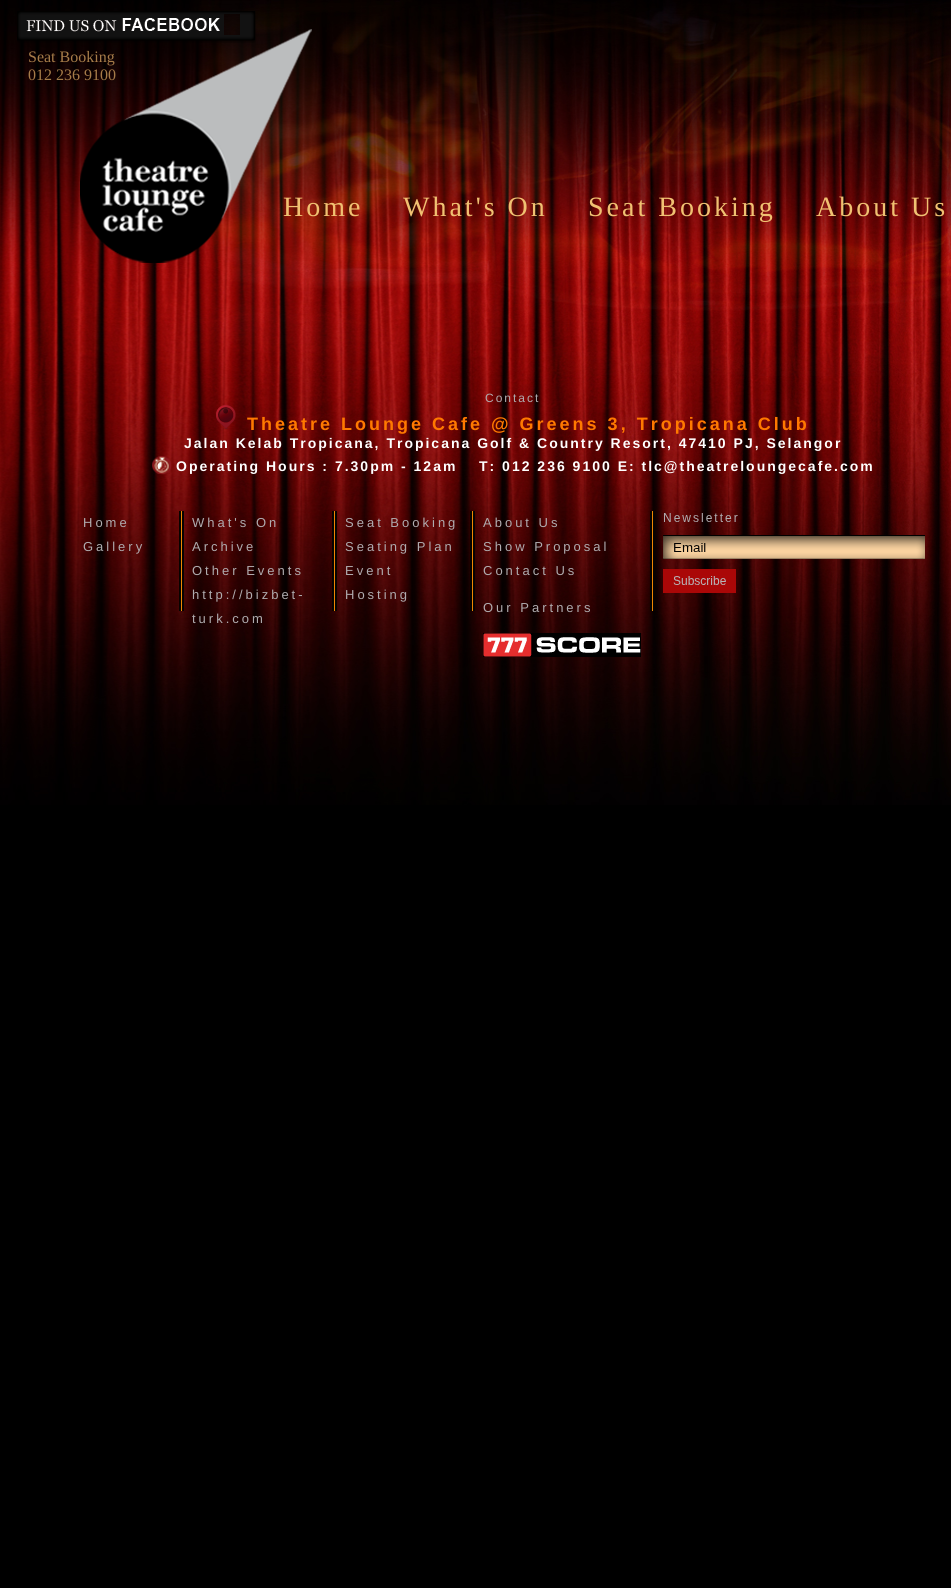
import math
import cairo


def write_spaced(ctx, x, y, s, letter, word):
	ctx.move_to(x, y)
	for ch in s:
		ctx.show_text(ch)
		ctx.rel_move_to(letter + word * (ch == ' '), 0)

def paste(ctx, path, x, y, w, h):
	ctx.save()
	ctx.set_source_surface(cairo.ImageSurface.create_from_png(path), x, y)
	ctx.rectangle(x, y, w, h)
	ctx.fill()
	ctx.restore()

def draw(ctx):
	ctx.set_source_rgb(0, 0, 0)
	ctx.paint()
	paste(ctx, 'media/1.png', 0, 0, 951, 805)
	ctx.select_font_face('Liberation Serif')
	ctx.set_font_size(28)
	ctx.set_source_rgb(0.941, 0.757, 0.447)
	write_spaced(ctx, 283, 216, 'Home', 3, 0)
	paste(ctx, 'media/3.png', 80, 29, 232, 234)
	paste(ctx, 'media/2.png', 17, 11, 239, 32)
	ctx.set_font_size(16)
	ctx.set_source_rgb(0.651, 0.486, 0.286)
	ctx.move_to(28, 62)
	ctx.show_text('Seat Booking')
	ctx.move_to(28, 80)
	ctx.show_text('012 236 9100')
	ctx.set_font_size(28)
	ctx.set_source_rgb(0.941, 0.757, 0.447)
	for x, y, s in [
		(403, 216, 'What\'s On'),
		(588, 216, 'Seat Booking'),
		(816, 216, 'About Us'),
	]:
		write_spaced(ctx, x, y, s, 3, 0)
	ctx.select_font_face('Liberation Sans')
	ctx.set_font_size(12)
	ctx.set_source_rgb(0.686, 0.675, 0.686)
	write_spaced(ctx, 485, 402, 'Contact', 2, 0)
	paste(ctx, 'media/4.png', 216, 405, 20, 25)
	ctx.select_font_face('Liberation Sans', cairo.FONT_SLANT_NORMAL, cairo.FONT_WEIGHT_BOLD)
	ctx.set_font_size(18)
	ctx.set_source_rgb(1, 0.475, 0)
	write_spaced(ctx, 247, 430, 'Theatre Lounge Cafe @ Greens 3, Tropicana Club', 3, 0)
	ctx.set_font_size(14)
	ctx.set_source_rgb(1, 1, 1)
	write_spaced(ctx, 184, 448, 'Jalan Kelab Tropicana, Tropicana Golf & Country Resort, 47410 PJ, Selangor', 2, 0)
	paste(ctx, 'media/5.png', 152, 456, 19, 19)
	write_spaced(ctx, 176, 471, 'Operating Hours : 7.30pm - 12am', 2, 0)
	write_spaced(ctx, 479, 471, 'T: 012 236 9100 E: tlc@theatreloungecafe.com', 2, 0)
	ctx.select_font_face('Liberation Sans')
	ctx.set_font_size(13)
	ctx.set_source_rgb(0.686, 0.675, 0.686)
	write_spaced(ctx, 83, 527, 'Home', 3, 0)
	write_spaced(ctx, 83, 551, 'Gallery', 3, 0)
	paste(ctx, 'media/6.png', 179, 511, 5, 100)
	for x, y, s in [
		(192, 527, 'What\'s On'),
		(192, 551, 'Archive'),
		(192, 575, 'Other Events'),
		(192, 599, 'http://bizbet-'),
		(192, 623, 'turk.com'),
	]:
		write_spaced(ctx, x, y, s, 3, 0)
	paste(ctx, 'media/6.png', 332, 511, 5, 100)
	for x, y, s in [
		(345, 527, 'Seat Booking'),
		(345, 551, 'Seating Plan'),
		(345, 575, 'Event'),
		(345, 599, 'Hosting'),
	]:
		write_spaced(ctx, x, y, s, 3, 0)
	paste(ctx, 'media/6.png', 470, 511, 5, 100)
	for x, y, s in [
		(483, 527, 'About Us'),
		(483, 551, 'Show Proposal'),
		(483, 575, 'Contact Us'),
		(483, 612, 'Our Partners'),
	]:
		write_spaced(ctx, x, y, s, 3, 0)
	paste(ctx, 'media/7.png', 483, 633, 158, 24)
	paste(ctx, 'media/6.png', 650, 511, 5, 100)
	paste(ctx, 'media/8.png', 663, 513, 262, 80)


surface = cairo.ImageSurface(cairo.FORMAT_RGB24, 951, 1588)
ctx = cairo.Context(surface)
options = cairo.FontOptions()
options.set_hint_metrics(cairo.HINT_METRICS_OFF)
options.set_hint_style(cairo.HINT_STYLE_NONE)
ctx.set_font_options(options)
ctx.set_miter_limit(4)
draw(ctx)
surface.write_to_png('image.png')
